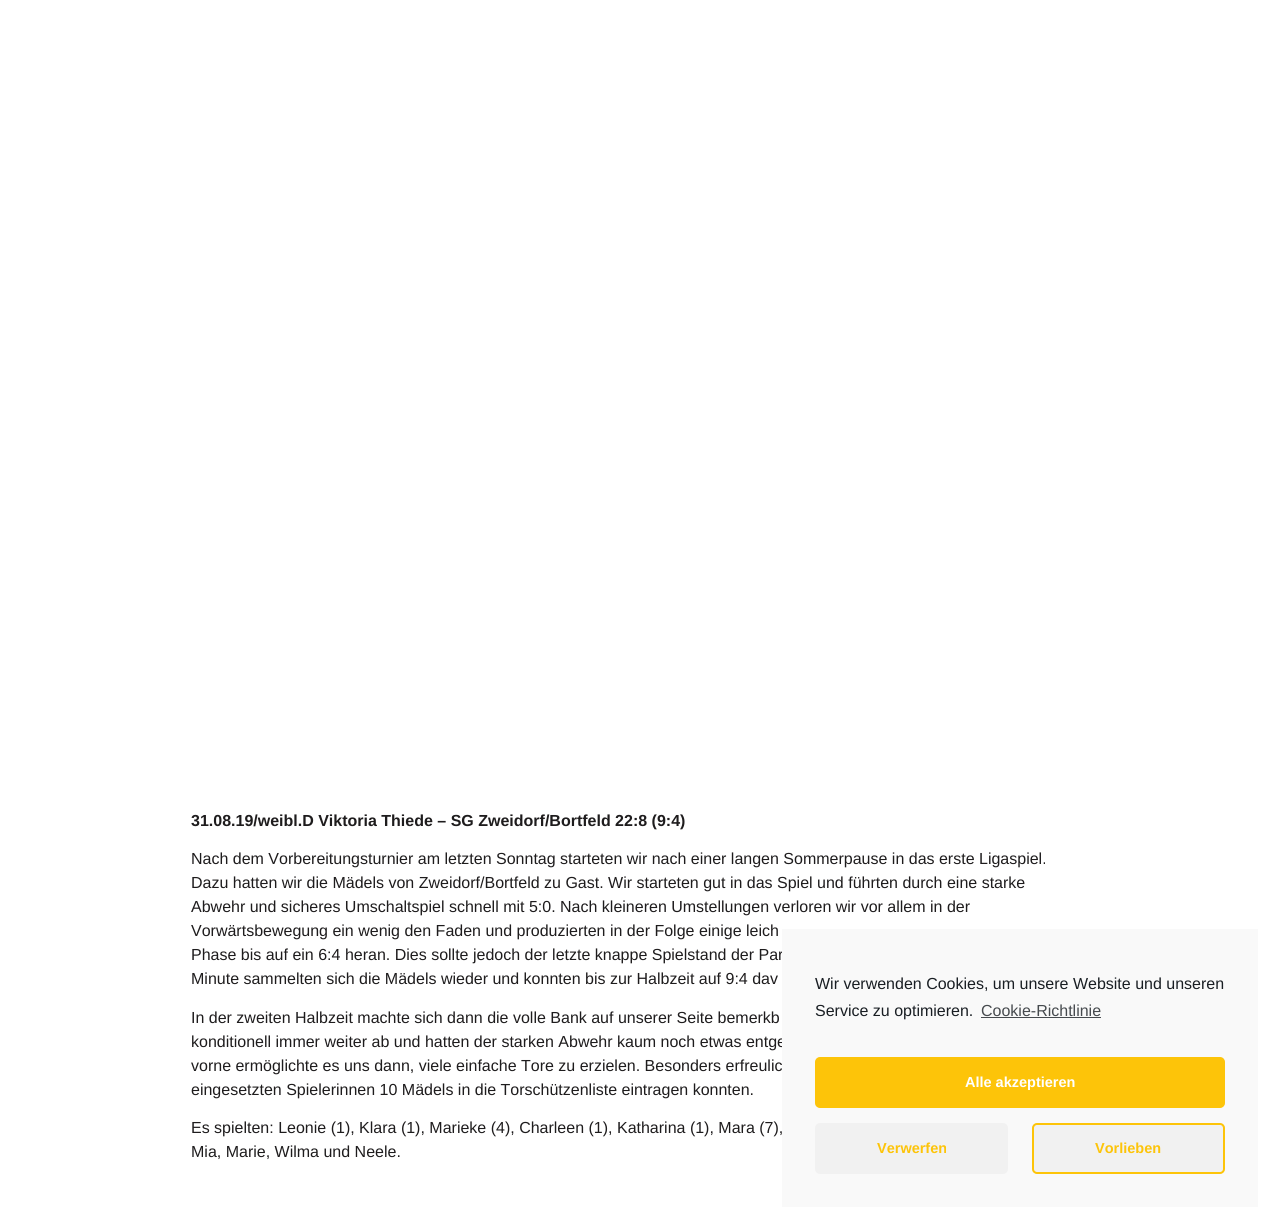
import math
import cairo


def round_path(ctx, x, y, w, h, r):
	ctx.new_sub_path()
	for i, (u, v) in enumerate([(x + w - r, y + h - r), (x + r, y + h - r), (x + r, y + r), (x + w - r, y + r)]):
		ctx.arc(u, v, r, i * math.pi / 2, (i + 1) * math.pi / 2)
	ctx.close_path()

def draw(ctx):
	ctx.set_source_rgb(1, 1, 1)
	ctx.paint()
	ctx.select_font_face('Liberation Sans', cairo.FONT_SLANT_NORMAL, cairo.FONT_WEIGHT_BOLD)
	ctx.set_font_size(16)
	ctx.set_source_rgb(0.118, 0.11, 0.114)
	ctx.move_to(191, 826)
	ctx.show_text('31.08.19/weibl.D Viktoria Thiede – SG Zweidorf/Bortfeld 22:8 (9:4)')
	ctx.select_font_face('Liberation Sans')
	for x, y, s in [
		(191, 864, 'Nach dem Vorbereitungsturnier am letzten Sonntag starteten wir nach einer langen Sommerpause in das erste Ligaspiel.'),
		(191, 888, 'Dazu hatten wir die Mädels von Zweidorf/Bortfeld zu Gast. Wir starteten gut in das Spiel und führten durch eine starke'),
		(191, 912, 'Abwehr und sicheres Umschaltspiel schnell mit 5:0. Nach kleineren Umstellungen verloren wir vor allem in der'),
		(191, 936, 'Vorwärtsbewegung ein wenig den Faden und produzierten in der Folge einige leich'),
		(191, 960, 'Phase bis auf ein 6:4 heran. Dies sollte jedoch der letzte knappe Spielstand der Par'),
		(191, 984, 'Minute sammelten sich die Mädels wieder und konnten bis zur Halbzeit auf 9:4 dav'),
		(191, 1023, 'In der zweiten Halbzeit machte sich dann die volle Bank auf unserer Seite bemerkb'),
		(191, 1047, 'konditionell immer weiter ab und hatten der starken Abwehr kaum noch etwas entge'),
		(191, 1071, 'vorne ermöglichte es uns dann, viele einfache Tore zu erzielen. Besonders erfreulic'),
		(191, 1095, 'eingesetzten Spielerinnen 10 Mädels in die Torschützenliste eintragen konnten.'),
		(191, 1133, 'Es spielten: Leonie (1), Klara (1), Marieke (4), Charleen (1), Katharina (1), Mara (7),'),
		(191, 1157, 'Mia, Marie, Wilma und Neele.'),
	]:
		ctx.move_to(x, y)
		ctx.show_text(s)
	ctx.set_source_rgb(0.976, 0.976, 0.976)
	ctx.rectangle(782, 929, 476, 278)
	ctx.fill()
	ctx.set_source_rgb(0.098, 0.118, 0.137)
	ctx.move_to(815, 989)
	ctx.show_text('Wir verwenden Cookies, um unsere Website und unseren')
	ctx.move_to(815, 1016)
	ctx.show_text('Service zu optimieren.')
	ctx.set_source_rgb(0.275, 0.29, 0.306)
	ctx.move_to(981, 1016)
	ctx.show_text('Cookie-Richtlinie')
	ctx.rectangle(981, 1017, 120, 1)
	ctx.fill()
	ctx.set_source_rgb(0.992, 0.769, 0.039)
	round_path(ctx, 816, 1058, 408, 49, 4)
	ctx.fill_preserve()
	ctx.stroke()
	ctx.select_font_face('Liberation Sans', cairo.FONT_SLANT_NORMAL, cairo.FONT_WEIGHT_BOLD)
	ctx.set_font_size(14.5)
	ctx.set_source_rgb(1, 1, 1)
	ctx.move_to(965, 1087)
	ctx.show_text('Alle akzeptieren')
	ctx.set_source_rgb(0.945, 0.945, 0.945)
	round_path(ctx, 815, 1123, 193, 51, 5)
	ctx.fill()
	ctx.set_source_rgb(0.992, 0.769, 0.039)
	ctx.move_to(877, 1153)
	ctx.show_text('Verwerfen')
	ctx.set_source_rgb(0.945, 0.945, 0.945)
	round_path(ctx, 1033, 1124, 191, 49, 4)
	ctx.fill_preserve()
	ctx.set_source_rgb(0.992, 0.769, 0.039)
	ctx.stroke()
	ctx.move_to(1095, 1153)
	ctx.show_text('Vorlieben')


surface = cairo.ImageSurface(cairo.FORMAT_RGB24, 1274, 1223)
ctx = cairo.Context(surface)
options = cairo.FontOptions()
options.set_hint_metrics(cairo.HINT_METRICS_OFF)
options.set_hint_style(cairo.HINT_STYLE_NONE)
ctx.set_font_options(options)
ctx.set_miter_limit(4)
draw(ctx)
surface.write_to_png('image.png')
